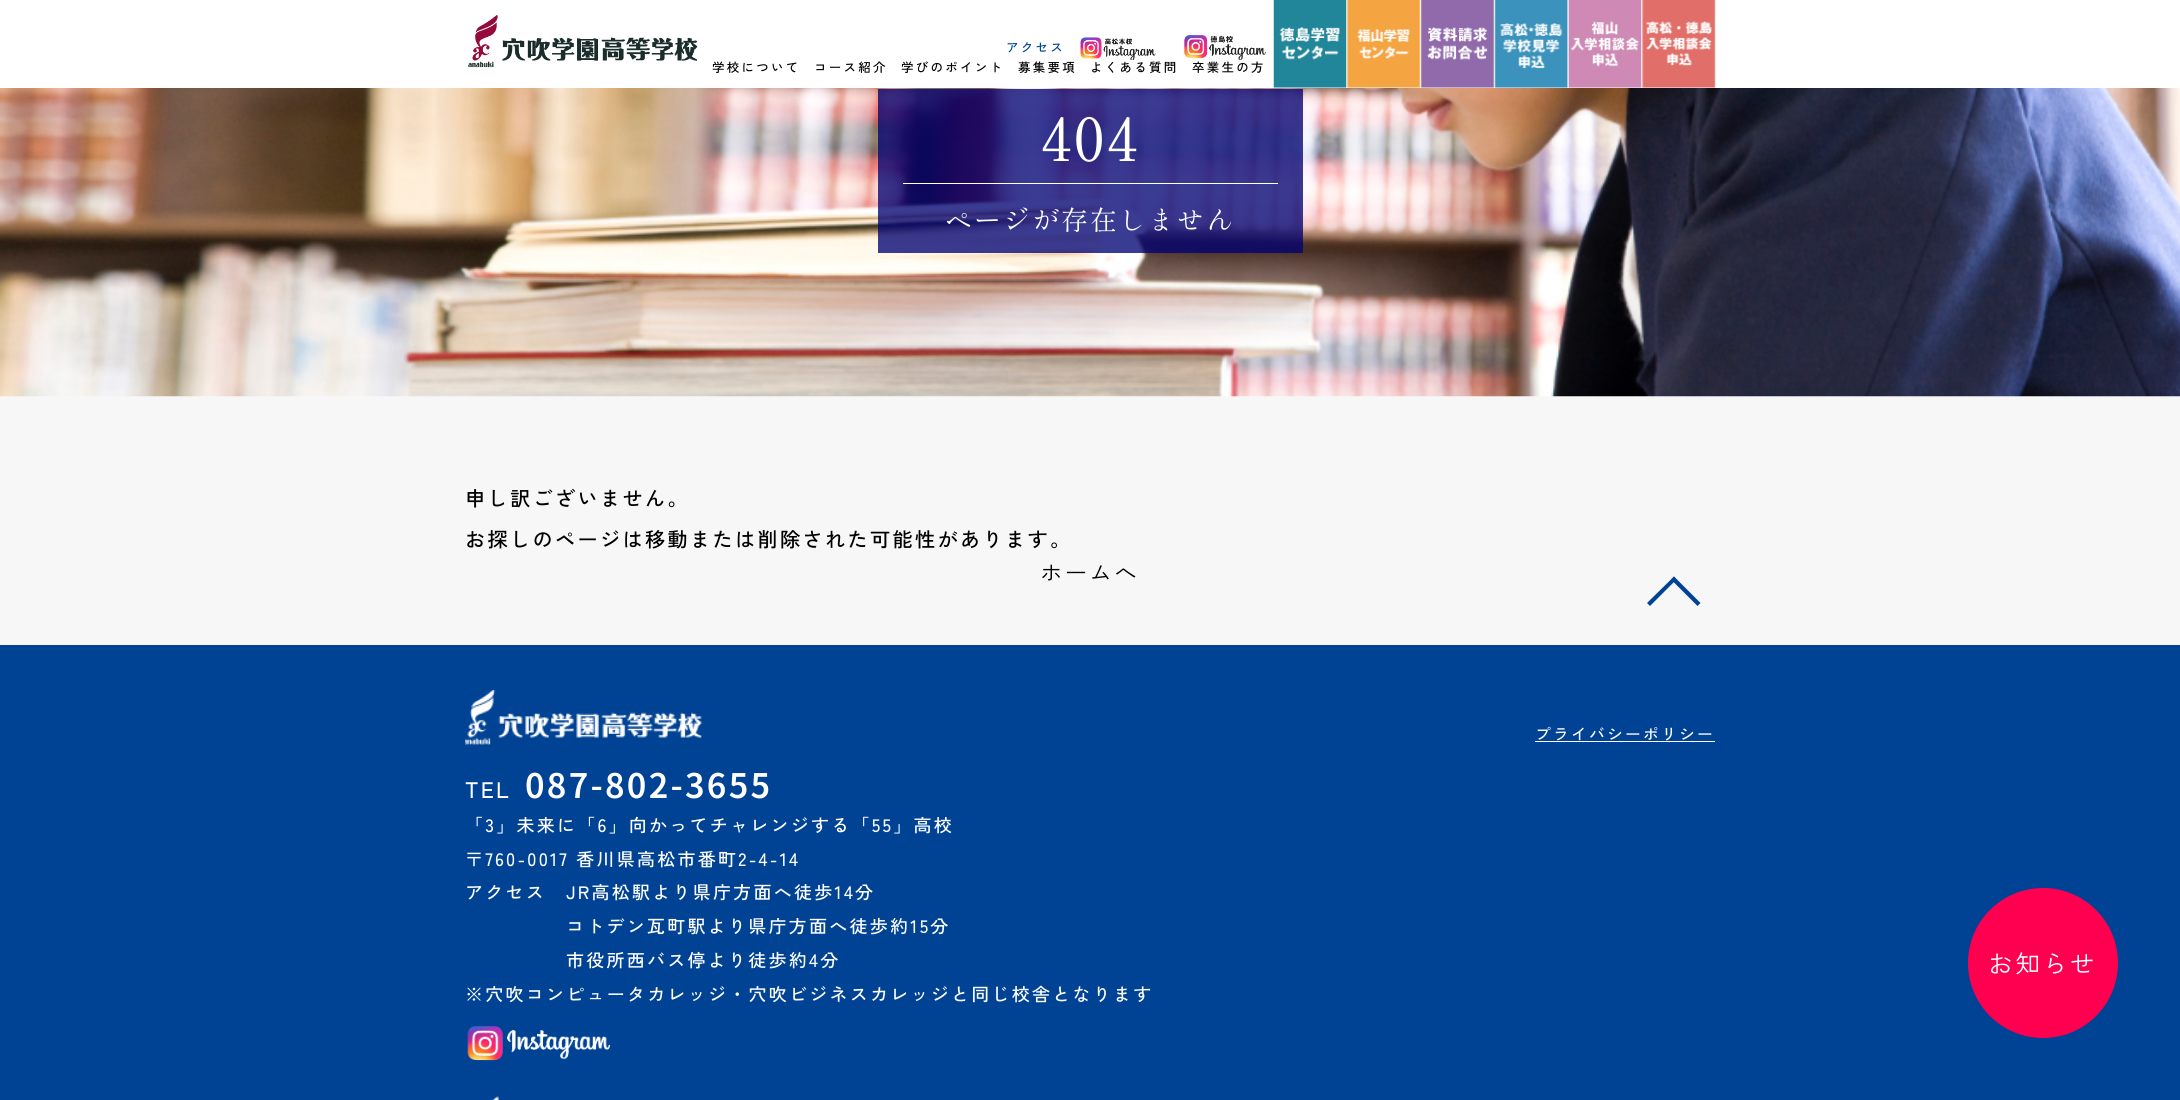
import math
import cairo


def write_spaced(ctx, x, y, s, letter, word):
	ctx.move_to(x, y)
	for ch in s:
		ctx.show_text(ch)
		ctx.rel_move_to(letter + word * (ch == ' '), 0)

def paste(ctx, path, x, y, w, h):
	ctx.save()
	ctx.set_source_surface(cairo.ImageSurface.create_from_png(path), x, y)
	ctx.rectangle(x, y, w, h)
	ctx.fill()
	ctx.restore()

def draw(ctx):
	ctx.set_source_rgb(0.965, 0.965, 0.965)
	ctx.paint()
	ctx.set_source_rgb(1, 1, 1)
	ctx.rectangle(0, 0, 2180, 88)
	ctx.fill()
	paste(ctx, 'media/1.png', 468, 15, 230, 53)
	ctx.select_font_face('Zen Kaku Gothic New Medium')
	ctx.set_font_size(12.5)
	ctx.set_source_rgb(0, 0.259, 0.58)
	write_spaced(ctx, 1006, 52, 'アクセス', 2.25, 0)
	paste(ctx, 'media/2.png', 1080, 37, 76, 23)
	paste(ctx, 'media/3.png', 1184, 35, 82, 25)
	ctx.set_source_rgb(0, 0, 0)
	for x, y, s in [
		(712, 72, '学校について'),
		(814, 72, 'コース紹介'),
		(901, 72, '学びのポイント'),
		(1018, 72, '募集要項'),
		(1090, 72, 'よくある質問'),
		(1192, 72, '卒業生の方'),
	]:
		write_spaced(ctx, x, y, s, 2.25, 0)
	paste(ctx, 'media/4.png', 1273, 0, 74, 88)
	paste(ctx, 'media/5.png', 1347, 0, 74, 88)
	paste(ctx, 'media/6.png', 1421, 0, 73, 88)
	paste(ctx, 'media/7.png', 1494, 0, 75, 88)
	paste(ctx, 'media/8.png', 1568, 0, 74, 88)
	paste(ctx, 'media/9.png', 1642, 0, 74, 88)
	ctx.set_source_rgb(0, 0.259, 0.58)
	ctx.rectangle(0, 645, 2180, 455)
	ctx.fill()
	ctx.set_source_rgb(1, 0, 0.314)
	ctx.arc(2043, 963, 75, 0, 2 * math.pi)
	ctx.fill()
	ctx.select_font_face('Zen Kaku Gothic New')
	ctx.set_font_size(25)
	ctx.set_source_rgb(1, 1, 1)
	write_spaced(ctx, 1988, 973, 'お知らせ', 2.25, 0)
	paste(ctx, 'media/10.png', 0, 88, 2180, 309)
	ctx.set_source_rgba(0, 0.008, 0.447, 0.77)
	ctx.rectangle(878, 89, 425, 164)
	ctx.fill()
	ctx.set_source_rgb(1, 1, 1)
	ctx.rectangle(903, 183, 375, 1)
	ctx.fill()
	ctx.select_font_face('Shippori Mincho')
	ctx.set_font_size(60)
	write_spaced(ctx, 1041, 161, '404', 2.25, 0)
	ctx.set_font_size(26.75)
	write_spaced(ctx, 945, 230, 'ページが存在しません', 2.25, 0)
	ctx.select_font_face('Zen Kaku Gothic New Medium')
	ctx.set_font_size(20.25)
	ctx.set_source_rgb(0, 0, 0)
	write_spaced(ctx, 465, 506, '申し訳ございません。', 2.25, 0)
	write_spaced(ctx, 465, 547, 'お探しのページは移動または削除された可能性があります。', 2.25, 0)
	ctx.select_font_face('Zen Kaku Gothic New')
	ctx.set_font_size(22.5)
	write_spaced(ctx, 1040, 581, 'ホームへ', 2.25, 0)
	ctx.set_source_rgb(0, 0.259, 0.58)
	ctx.new_path()
	ctx.move_to(1647, 603)
	ctx.line_to(1674, 576.5)
	ctx.line_to(1676.5, 579.5)
	ctx.line_to(1650, 606)
	ctx.close_path()
	ctx.fill()
	ctx.new_path()
	ctx.move_to(1671, 579.5)
	ctx.line_to(1674, 576.5)
	ctx.line_to(1700.5, 603)
	ctx.line_to(1697.5, 606)
	ctx.close_path()
	ctx.fill()
	paste(ctx, 'media/11.png', 465, 690, 238, 55)
	ctx.select_font_face('Zen Kaku Gothic New Medium')
	ctx.set_font_size(15.75)
	ctx.set_source_rgb(1, 1, 1)
	write_spaced(ctx, 1535, 740, 'プライバシーポリシー', 2.25, 0)
	ctx.rectangle(1535, 741, 180, 1)
	ctx.fill()
	ctx.set_font_size(22.5)
	write_spaced(ctx, 465, 798, 'TEL', 2.25, 0)
	ctx.select_font_face('Noto Sans JP SemiBold')
	ctx.set_font_size(33.75)
	write_spaced(ctx, 525, 798, '087-802-3655', 2.25, 0)
	ctx.select_font_face('Zen Kaku Gothic New Medium')
	ctx.set_font_size(18)
	for x, y, s in [
		(465, 832, '「3」未来に「6」向かってチャレンジする「55」高校'),
		(465, 866, '〒760-0017 香川県高松市番町2-4-14'),
		(465, 899, 'アクセス'),
		(566, 899, 'JR高松駅より県庁方面へ徒歩14分'),
		(566, 933, 'コトデン瓦町駅より県庁方面へ徒歩約15分'),
		(566, 967, '市役所西バス停より徒歩約4分'),
		(465, 1001, '※穴吹コンピュータカレッジ・穴吹ビジネスカレッジと同じ校舎となります'),
	]:
		write_spaced(ctx, x, y, s, 2.25, 0)
	paste(ctx, 'media/12.png', 467, 1025, 143, 36)
	paste(ctx, 'media/13.png', 492, 1096, 7, 4)


surface = cairo.ImageSurface(cairo.FORMAT_RGB24, 2180, 1100)
ctx = cairo.Context(surface)
options = cairo.FontOptions()
options.set_hint_metrics(cairo.HINT_METRICS_OFF)
options.set_hint_style(cairo.HINT_STYLE_NONE)
ctx.set_font_options(options)
ctx.set_miter_limit(4)
draw(ctx)
surface.write_to_png('image.png')
